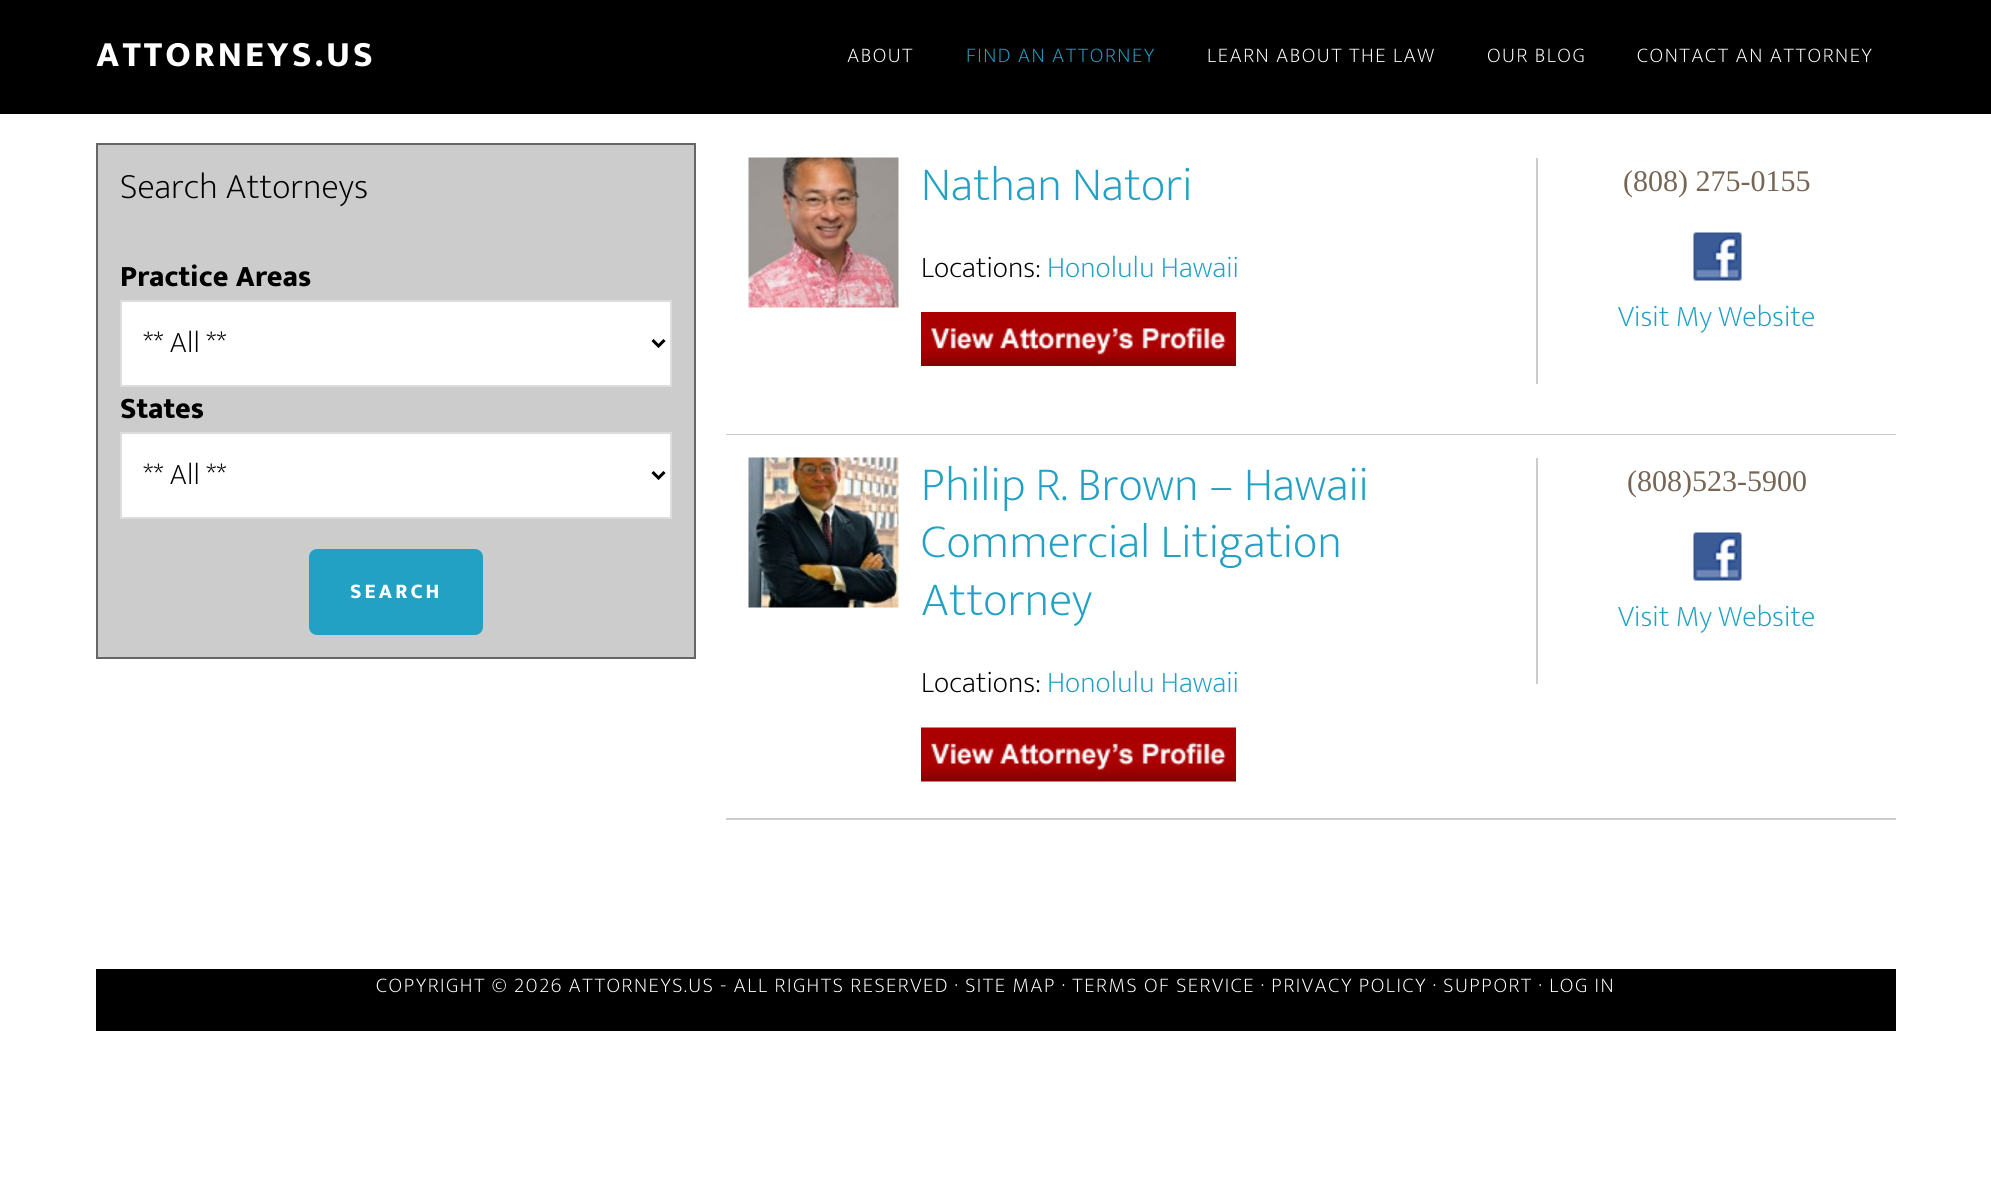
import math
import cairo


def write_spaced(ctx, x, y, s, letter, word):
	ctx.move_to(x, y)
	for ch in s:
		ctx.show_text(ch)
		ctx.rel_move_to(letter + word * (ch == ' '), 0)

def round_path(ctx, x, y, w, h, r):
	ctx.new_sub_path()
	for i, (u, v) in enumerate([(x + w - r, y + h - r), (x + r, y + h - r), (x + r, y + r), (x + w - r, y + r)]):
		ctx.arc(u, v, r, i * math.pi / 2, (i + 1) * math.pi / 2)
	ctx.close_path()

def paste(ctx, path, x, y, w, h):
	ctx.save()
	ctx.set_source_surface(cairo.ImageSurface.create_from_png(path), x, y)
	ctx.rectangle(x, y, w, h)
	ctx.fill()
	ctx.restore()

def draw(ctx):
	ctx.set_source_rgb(1, 1, 1)
	ctx.paint()
	ctx.set_source_rgb(0, 0, 0)
	ctx.rectangle(0, 0, 1991, 114)
	ctx.fill()
	ctx.select_font_face('Ek Mukta ExtraBold')
	ctx.set_font_size(36)
	ctx.set_source_rgb(1, 1, 1)
	write_spaced(ctx, 96, 66, 'ATTORNEYS.US', 3, 0)
	ctx.select_font_face('Ek Mukta ExtraLight')
	ctx.set_font_size(21)
	write_spaced(ctx, 847, 62, 'ABOUT', 1.5, 0)
	ctx.set_source_rgb(0.133, 0.631, 0.769)
	write_spaced(ctx, 966, 62, 'FIND AN ATTORNEY', 1.5, 0)
	ctx.set_source_rgb(1, 1, 1)
	for x, y, s in [
		(1207, 62, 'LEARN ABOUT THE LAW'),
		(1487, 62, 'OUR BLOG'),
		(1637, 62, 'CONTACT AN ATTORNEY'),
	]:
		write_spaced(ctx, x, y, s, 1.5, 0)
	ctx.set_source_rgb(0.8, 0.8, 0.8)
	ctx.rectangle(97, 144, 598, 514)
	ctx.fill_preserve()
	ctx.set_source_rgb(0.4, 0.4, 0.4)
	ctx.stroke()
	ctx.set_font_size(36)
	ctx.set_source_rgb(0, 0, 0)
	ctx.move_to(120, 198)
	ctx.show_text('Search Attorneys')
	ctx.select_font_face('Ek Mukta ExtraBold')
	ctx.set_font_size(30)
	ctx.move_to(120, 286)
	ctx.show_text('Practice Areas')
	ctx.set_source_rgb(1, 1, 1)
	ctx.rectangle(121, 301, 550, 85)
	ctx.fill_preserve()
	ctx.set_source_rgb(0.867, 0.867, 0.867)
	ctx.stroke()
	ctx.new_path()
	ctx.move_to(652.5, 340)
	ctx.line_to(658.5, 346)
	ctx.line_to(664.5, 340)
	ctx.set_source_rgb(0, 0, 0)
	ctx.set_line_width(3)
	ctx.stroke()
	ctx.select_font_face('Ek Mukta ExtraLight')
	ctx.move_to(143, 352)
	ctx.show_text('** All **')
	ctx.select_font_face('Ek Mukta ExtraBold')
	ctx.move_to(120, 418)
	ctx.show_text('States')
	ctx.set_source_rgb(1, 1, 1)
	ctx.rectangle(121, 433, 550, 85)
	ctx.fill_preserve()
	ctx.set_source_rgb(0.867, 0.867, 0.867)
	ctx.set_line_width(2)
	ctx.stroke()
	ctx.new_path()
	ctx.move_to(652.5, 472)
	ctx.line_to(658.5, 478)
	ctx.line_to(664.5, 472)
	ctx.set_source_rgb(0, 0, 0)
	ctx.set_line_width(3)
	ctx.stroke()
	ctx.select_font_face('Ek Mukta ExtraLight')
	ctx.move_to(143, 484)
	ctx.show_text('** All **')
	ctx.set_source_rgb(0.133, 0.631, 0.769)
	round_path(ctx, 310.5, 550.5, 171, 83, 6.5)
	ctx.fill_preserve()
	ctx.stroke()
	ctx.select_font_face('Ek Mukta ExtraBold')
	ctx.set_font_size(21)
	ctx.set_source_rgb(1, 1, 1)
	write_spaced(ctx, 350, 598, 'SEARCH', 3, 0)
	ctx.set_source_rgb(0.8, 0.8, 0.8)
	ctx.rectangle(726, 434, 1170, 1)
	ctx.fill()
	paste(ctx, 'media/1.png', 748, 157, 151, 151)
	ctx.select_font_face('Ek Mukta ExtraLight')
	ctx.set_font_size(48)
	ctx.set_source_rgb(0.133, 0.631, 0.769)
	ctx.move_to(921, 200)
	ctx.show_text('Nathan Natori')
	ctx.set_font_size(30)
	ctx.set_source_rgb(0, 0, 0)
	ctx.move_to(921, 277)
	ctx.show_text('Locations:')
	ctx.set_source_rgb(0.133, 0.631, 0.769)
	ctx.move_to(1047, 277)
	ctx.show_text('Honolulu Hawaii')
	paste(ctx, 'media/2.png', 921, 312, 315, 54)
	ctx.set_source_rgb(0.8, 0.8, 0.8)
	ctx.rectangle(1536, 158, 2, 226)
	ctx.fill()
	ctx.select_font_face('Liberation Serif')
	ctx.set_source_rgb(0.463, 0.392, 0.329)
	ctx.move_to(1623, 191)
	ctx.show_text('(808) 275-0155')
	paste(ctx, 'media/3.png', 1693, 232, 49, 49)
	ctx.select_font_face('Ek Mukta ExtraLight')
	ctx.set_source_rgb(0.133, 0.631, 0.769)
	ctx.move_to(1618, 326)
	ctx.show_text('Visit My Website')
	ctx.set_source_rgb(0.8, 0.8, 0.8)
	ctx.rectangle(726, 818, 1170, 2)
	ctx.fill()
	paste(ctx, 'media/4.png', 748, 457, 151, 151)
	ctx.set_font_size(48)
	ctx.set_source_rgb(0.133, 0.631, 0.769)
	for x, y, s in [
		(921, 500, 'Philip R. Brown – Hawaii'),
		(921, 557, 'Commercial Litigation'),
		(921, 615, 'Attorney'),
	]:
		ctx.move_to(x, y)
		ctx.show_text(s)
	ctx.set_font_size(30)
	ctx.set_source_rgb(0, 0, 0)
	ctx.move_to(921, 692)
	ctx.show_text('Locations:')
	ctx.set_source_rgb(0.133, 0.631, 0.769)
	ctx.move_to(1047, 692)
	ctx.show_text('Honolulu Hawaii')
	paste(ctx, 'media/5.png', 921, 727, 315, 55)
	ctx.set_source_rgb(0.8, 0.8, 0.8)
	ctx.rectangle(1536, 458, 2, 226)
	ctx.fill()
	ctx.select_font_face('Liberation Serif')
	ctx.set_source_rgb(0.463, 0.392, 0.329)
	ctx.move_to(1627, 491)
	ctx.show_text('(808)523-5900')
	paste(ctx, 'media/3.png', 1693, 532, 49, 49)
	ctx.select_font_face('Ek Mukta ExtraLight')
	ctx.set_source_rgb(0.133, 0.631, 0.769)
	ctx.move_to(1618, 626)
	ctx.show_text('Visit My Website')
	ctx.set_source_rgb(0, 0, 0)
	ctx.rectangle(96, 969, 1800, 62)
	ctx.fill()
	ctx.set_font_size(21)
	ctx.set_source_rgb(1, 1, 1)
	write_spaced(ctx, 376, 992, 'COPYRIGHT © 2026 ATTORNEYS.US - ALL RIGHTS RESERVED · SITE MAP · TERMS OF SERVICE · PRIVACY POLICY · SUPPORT · LOG IN', 1.5, 0)


surface = cairo.ImageSurface(cairo.FORMAT_RGB24, 1991, 1204)
ctx = cairo.Context(surface)
options = cairo.FontOptions()
options.set_hint_metrics(cairo.HINT_METRICS_OFF)
options.set_hint_style(cairo.HINT_STYLE_NONE)
ctx.set_font_options(options)
ctx.set_miter_limit(4)
draw(ctx)
surface.write_to_png('image.png')
